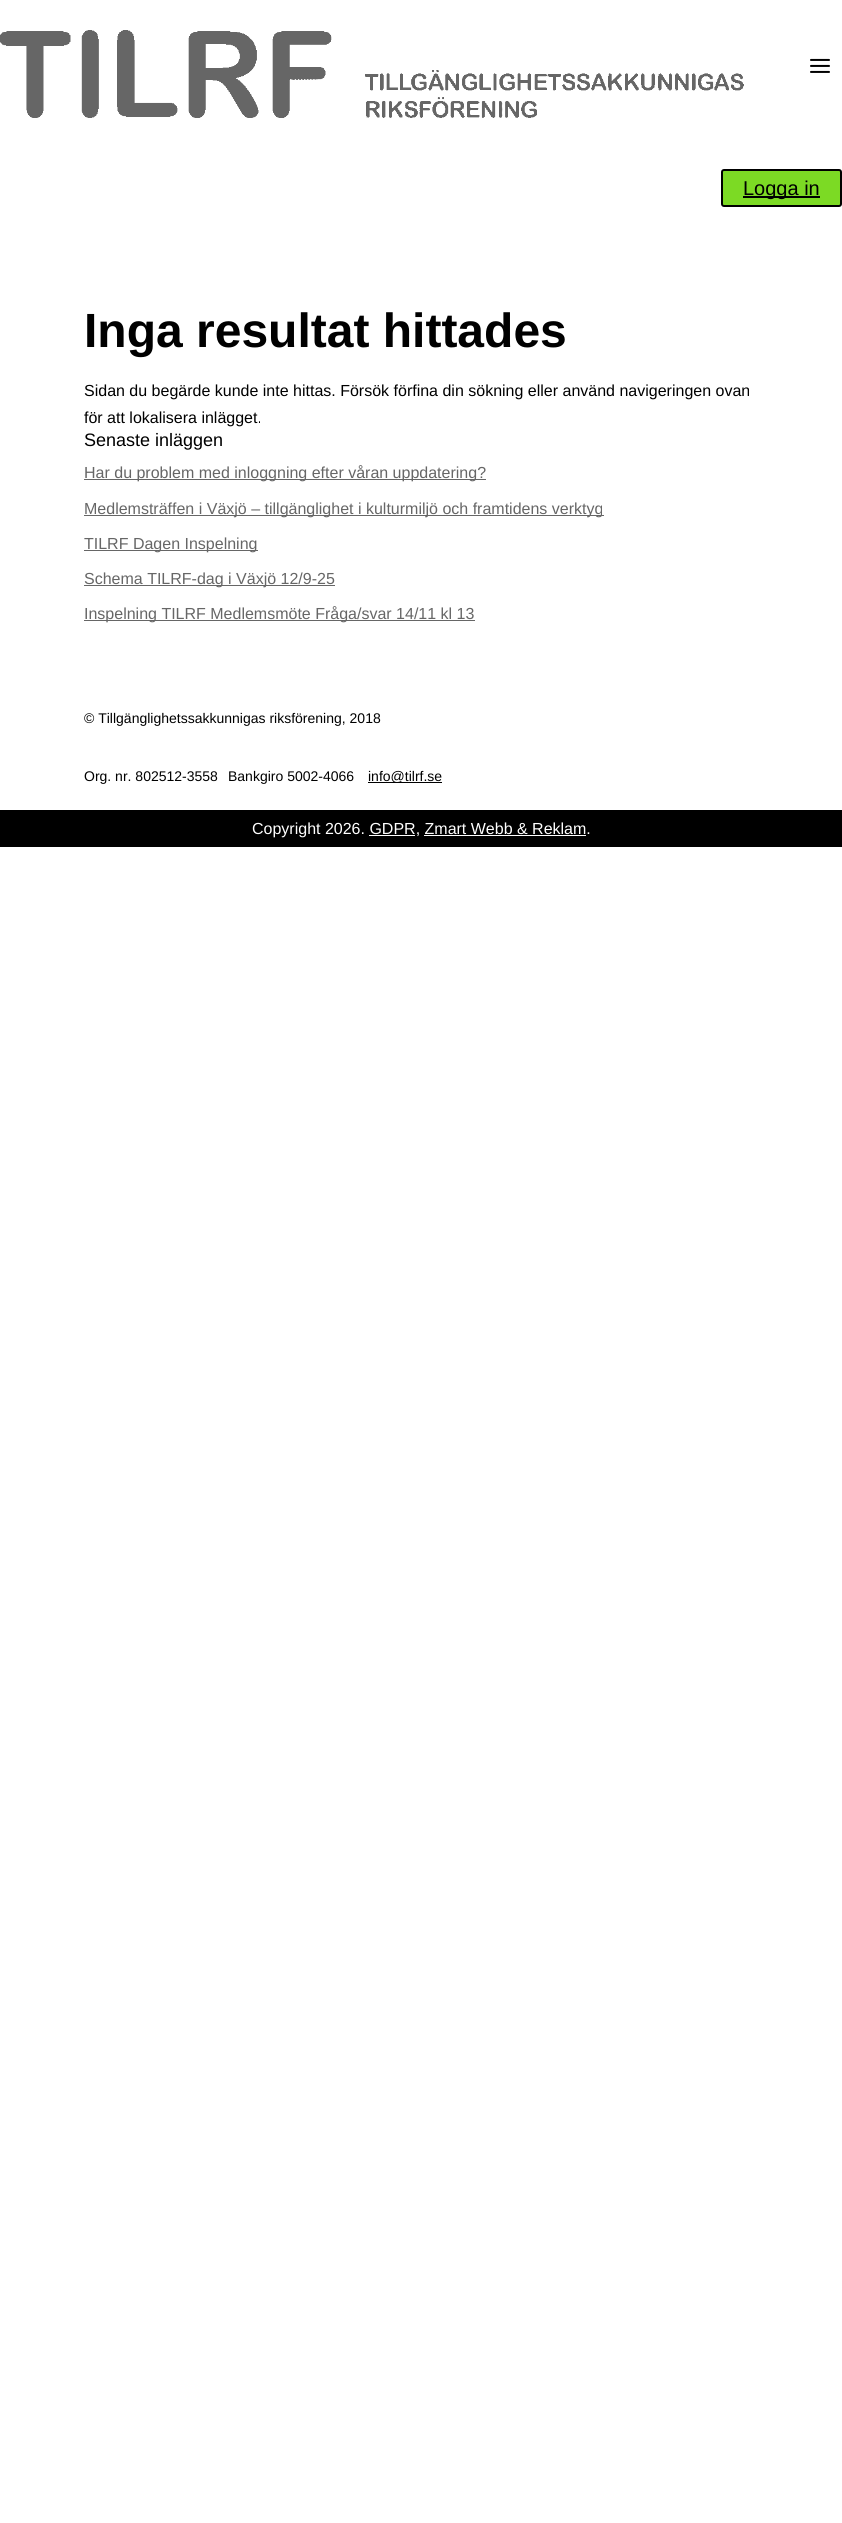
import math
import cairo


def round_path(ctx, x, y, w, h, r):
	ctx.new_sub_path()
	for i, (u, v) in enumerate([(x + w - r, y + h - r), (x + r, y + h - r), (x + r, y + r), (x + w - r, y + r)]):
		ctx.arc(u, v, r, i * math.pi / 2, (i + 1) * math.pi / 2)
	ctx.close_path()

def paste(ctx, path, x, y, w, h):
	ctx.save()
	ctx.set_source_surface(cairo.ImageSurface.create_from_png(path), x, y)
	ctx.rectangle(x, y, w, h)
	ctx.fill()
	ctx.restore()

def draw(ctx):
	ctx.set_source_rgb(1, 1, 1)
	ctx.paint()
	paste(ctx, 'media/1.png', 0, 30, 744, 88)
	paste(ctx, 'media/2.png', 810, 58, 20, 15)
	ctx.set_source_rgb(0.486, 0.855, 0.141)
	round_path(ctx, 722, 170, 119, 36, 2)
	ctx.fill_preserve()
	ctx.set_source_rgb(0, 0, 0)
	ctx.stroke()
	ctx.rectangle(743, 196, 77, 2)
	ctx.fill()
	ctx.select_font_face('Liberation Sans')
	ctx.set_font_size(20)
	ctx.move_to(743, 195)
	ctx.show_text('Logga in')
	ctx.select_font_face('Liberation Sans', cairo.FONT_SLANT_NORMAL, cairo.FONT_WEIGHT_BOLD)
	ctx.set_font_size(48)
	ctx.move_to(84, 347)
	ctx.show_text('Inga resultat hittades')
	ctx.select_font_face('Liberation Sans')
	ctx.set_font_size(16)
	ctx.move_to(84, 396)
	ctx.show_text('Sidan du begärde kunde inte hittas. Försök förfina din sökning eller använd navigeringen ovan')
	ctx.move_to(84, 423)
	ctx.show_text('för att lokalisera inlägget.')
	ctx.set_font_size(18)
	ctx.move_to(84, 446)
	ctx.show_text('Senaste inläggen')
	ctx.set_source_rgb(0.4, 0.4, 0.4)
	ctx.rectangle(84, 479, 402, 1)
	ctx.fill()
	ctx.set_font_size(16)
	ctx.move_to(84, 478)
	ctx.show_text('Har du problem med inloggning efter våran uppdatering?')
	ctx.rectangle(84, 515, 520, 1)
	ctx.fill()
	ctx.move_to(84, 514)
	ctx.show_text('Medlemsträffen i Växjö – tillgänglighet i kulturmiljö och framtidens verktyg')
	ctx.rectangle(84, 550, 174, 1)
	ctx.fill()
	ctx.move_to(84, 549)
	ctx.show_text('TILRF Dagen Inspelning')
	ctx.rectangle(84, 585, 251, 1)
	ctx.fill()
	ctx.move_to(84, 584)
	ctx.show_text('Schema TILRF-dag i Växjö 12/9-25')
	ctx.rectangle(84, 620, 391, 1)
	ctx.fill()
	ctx.move_to(84, 619)
	ctx.show_text('Inspelning TILRF Medlemsmöte Fråga/svar 14/11 kl 13')
	ctx.set_font_size(14)
	ctx.set_source_rgb(0, 0, 0)
	for x, y, s in [
		(84, 723, '© Tillgänglighetssakkunnigas riksförening, 2018'),
		(84, 781, 'Org. nr. 802512-3558'),
		(228, 781, 'Bankgiro 5002-4066'),
	]:
		ctx.move_to(x, y)
		ctx.show_text(s)
	ctx.rectangle(368, 782, 74, 1)
	ctx.fill()
	ctx.move_to(368, 781)
	ctx.show_text('info@tilrf.se')
	ctx.rectangle(0, 810, 842, 37)
	ctx.fill()
	ctx.set_font_size(16)
	ctx.set_source_rgb(1, 1, 1)
	ctx.move_to(252, 834)
	ctx.show_text('Copyright 2026. GDPR, Zmart Webb & Reklam.')
	ctx.rectangle(369, 835, 46, 1)
	ctx.fill()
	ctx.rectangle(424, 835, 162, 1)
	ctx.fill()


surface = cairo.ImageSurface(cairo.FORMAT_RGB24, 842, 2523)
ctx = cairo.Context(surface)
options = cairo.FontOptions()
options.set_hint_metrics(cairo.HINT_METRICS_OFF)
options.set_hint_style(cairo.HINT_STYLE_NONE)
ctx.set_font_options(options)
ctx.set_miter_limit(4)
draw(ctx)
surface.write_to_png('image.png')
